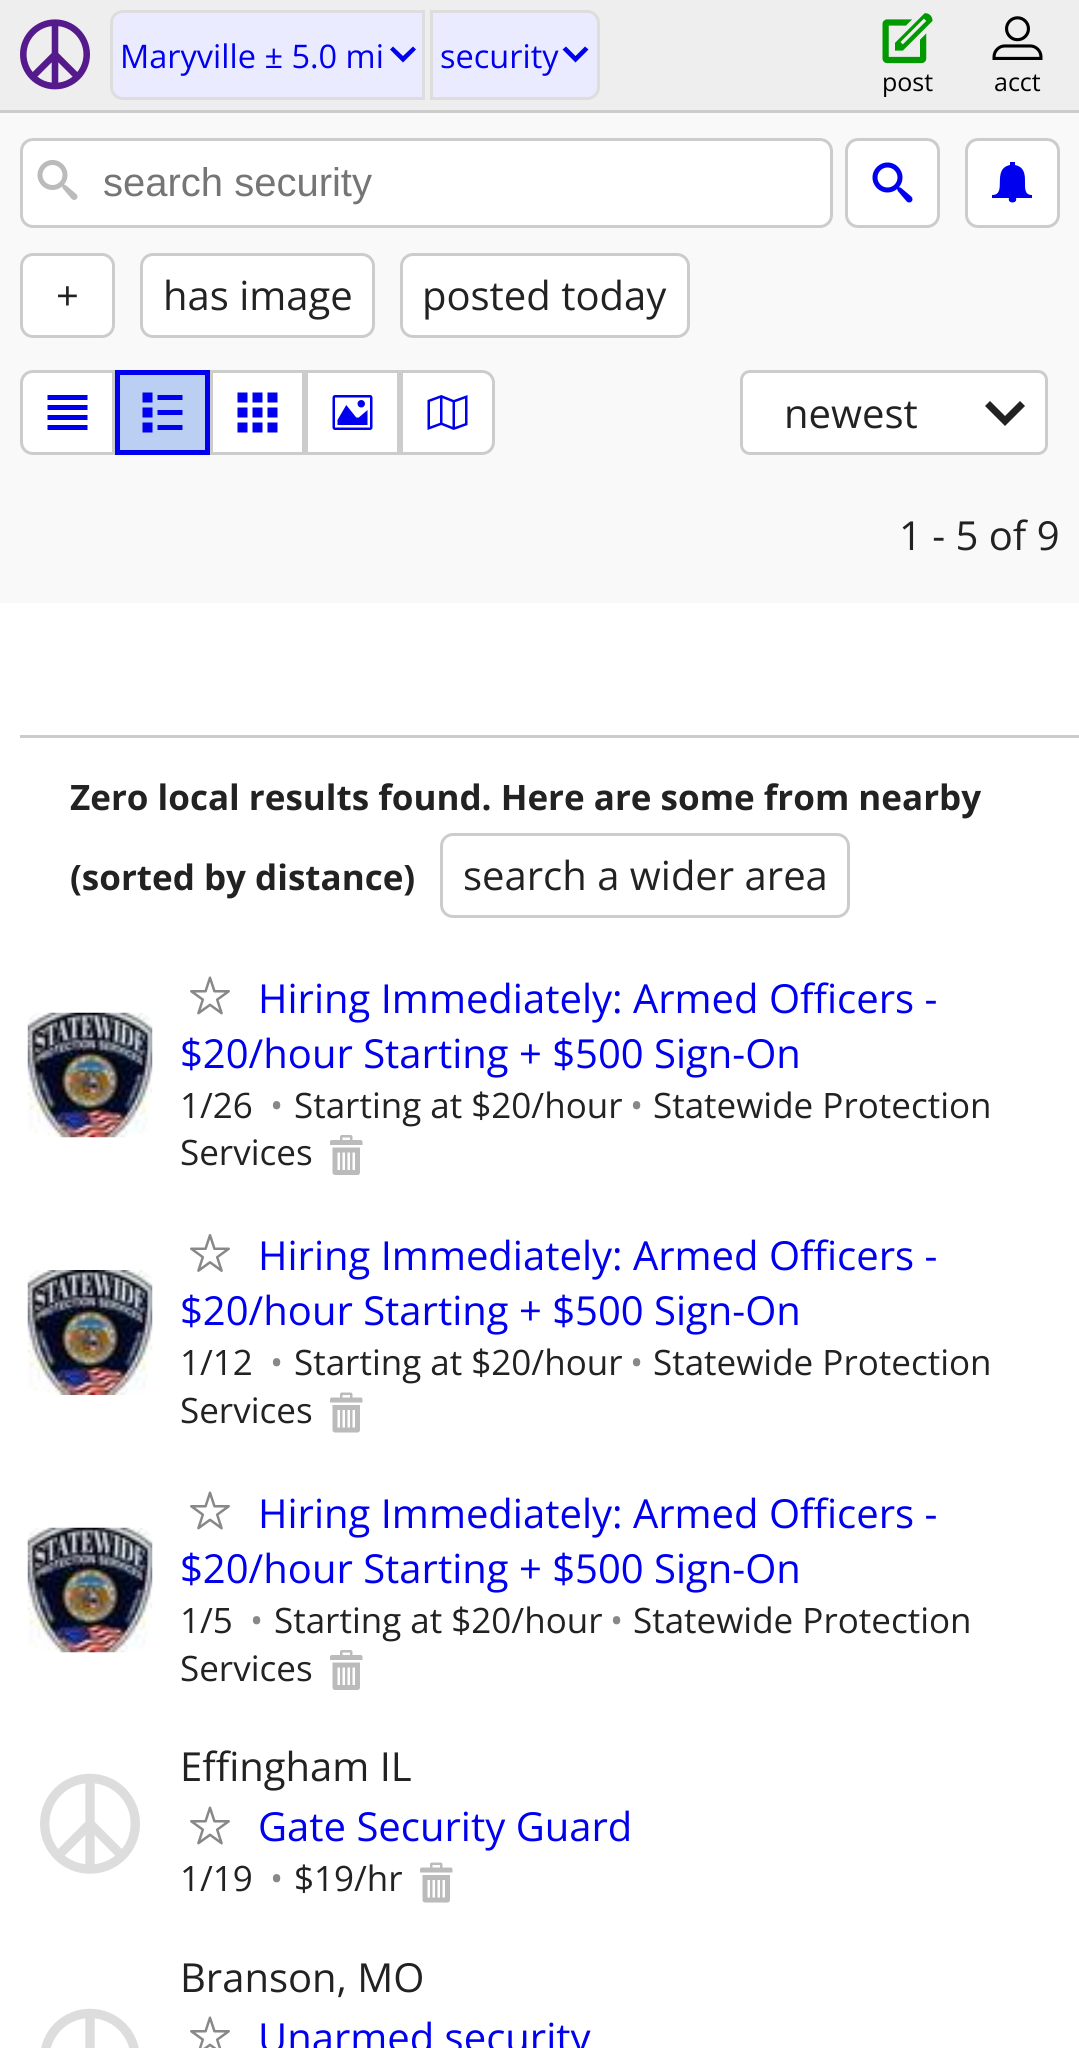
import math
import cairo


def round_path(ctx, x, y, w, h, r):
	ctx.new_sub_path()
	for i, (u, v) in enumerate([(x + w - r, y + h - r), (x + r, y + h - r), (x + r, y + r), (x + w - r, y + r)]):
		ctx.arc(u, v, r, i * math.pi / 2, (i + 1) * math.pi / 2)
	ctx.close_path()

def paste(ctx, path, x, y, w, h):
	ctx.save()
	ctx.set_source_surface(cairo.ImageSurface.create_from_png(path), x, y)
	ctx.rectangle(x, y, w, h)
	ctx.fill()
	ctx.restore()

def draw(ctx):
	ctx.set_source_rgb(1, 1, 1)
	ctx.paint()
	ctx.set_source_rgb(0.933, 0.933, 0.933)
	ctx.rectangle(0, 0, 1079, 110)
	ctx.fill()
	ctx.set_source_rgb(0.8, 0.8, 0.8)
	ctx.rectangle(0, 110, 1079, 3)
	ctx.fill()
	paste(ctx, 'media/1.png', 20, 19, 70, 71)
	ctx.set_source_rgb(0.918, 0.918, 1)
	ctx.new_path()
	ctx.move_to(123, 11.5)
	ctx.line_to(423.5, 11.5)
	ctx.line_to(423.5, 98.5)
	ctx.line_to(123, 98.5)
	ctx.curve_to(116.5, 98.5, 111.5, 93.5, 111.5, 87)
	ctx.line_to(111.5, 23)
	ctx.curve_to(111.5, 16.5, 116.5, 11.5, 123, 11.5)
	ctx.close_path()
	ctx.fill_preserve()
	ctx.set_source_rgb(0.867, 0.867, 0.867)
	ctx.set_line_width(3)
	ctx.stroke()
	ctx.select_font_face('Open Sans')
	ctx.set_font_size(32.5)
	ctx.set_source_rgb(0, 0, 0.933)
	ctx.move_to(120, 68)
	ctx.show_text('Maryville ± 5.0 mi')
	ctx.new_path()
	ctx.move_to(416, 49.5)
	ctx.line_to(413, 46.5)
	ctx.line_to(403, 56)
	ctx.line_to(393, 46.5)
	ctx.line_to(390, 49.5)
	ctx.line_to(403, 62.5)
	ctx.close_path()
	ctx.fill()
	ctx.set_source_rgb(0.918, 0.918, 1)
	ctx.new_path()
	ctx.move_to(431.5, 11.5)
	ctx.line_to(587, 11.5)
	ctx.curve_to(593.5, 11.5, 598.5, 16.5, 598.5, 23)
	ctx.line_to(598.5, 87)
	ctx.curve_to(598.5, 93.5, 593.5, 98.5, 587, 98.5)
	ctx.line_to(431.5, 98.5)
	ctx.close_path()
	ctx.fill_preserve()
	ctx.set_source_rgb(0.867, 0.867, 0.867)
	ctx.stroke()
	ctx.set_source_rgb(0, 0, 0.933)
	ctx.move_to(440, 68)
	ctx.show_text('security')
	ctx.new_path()
	ctx.move_to(588.5, 49.5)
	ctx.line_to(585, 46.5)
	ctx.line_to(575.5, 56)
	ctx.line_to(566, 46.5)
	ctx.line_to(562.5, 49.5)
	ctx.line_to(575.5, 62.5)
	ctx.close_path()
	ctx.fill()
	paste(ctx, 'media/2.png', 882, 13, 51, 51)
	ctx.set_font_size(25)
	ctx.set_source_rgb(0, 0, 0)
	ctx.move_to(882, 91)
	ctx.show_text('post')
	paste(ctx, 'media/3.png', 992, 16, 51, 44)
	ctx.move_to(994, 91)
	ctx.show_text('acct')
	ctx.set_source_rgb(0.973, 0.973, 0.973)
	ctx.rectangle(0, 113, 1079, 490)
	ctx.fill()
	ctx.set_source_rgb(1, 1, 1)
	round_path(ctx, 21.5, 139.5, 810, 87, 11.5)
	ctx.fill_preserve()
	ctx.set_source_rgb(0.8, 0.8, 0.8)
	ctx.stroke()
	paste(ctx, 'media/4.png', 37, 160, 41, 40)
	ctx.select_font_face('Liberation Sans')
	ctx.set_font_size(40)
	ctx.set_source_rgb(0.459, 0.459, 0.459)
	ctx.move_to(103, 196)
	ctx.show_text('search security')
	ctx.set_source_rgb(1, 1, 1)
	round_path(ctx, 846.5, 139.5, 92, 87, 11.5)
	ctx.fill_preserve()
	ctx.set_source_rgb(0.8, 0.8, 0.8)
	ctx.stroke()
	paste(ctx, 'media/5.png', 872, 162, 41, 41)
	ctx.set_source_rgb(1, 1, 1)
	round_path(ctx, 966.5, 139.5, 92, 87, 11.5)
	ctx.fill_preserve()
	ctx.set_source_rgb(0.8, 0.8, 0.8)
	ctx.stroke()
	ctx.set_source_rgb(0, 0, 0.933)
	ctx.new_path()
	ctx.move_to(1032, 195)
	ctx.curve_to(1017, 195, 1034, 169, 1015, 165)
	ctx.line_to(1015, 162)
	ctx.line_to(1010, 162)
	ctx.line_to(1010, 165)
	ctx.curve_to(991, 169, 1008, 195, 992, 195)
	ctx.line_to(992, 198)
	ctx.line_to(1009, 198)
	ctx.curve_to(1007, 204, 1018, 204, 1016, 198)
	ctx.line_to(1032, 198)
	ctx.close_path()
	ctx.fill()
	ctx.set_source_rgb(1, 1, 1)
	round_path(ctx, 21.5, 254.5, 92, 82, 11.5)
	ctx.fill_preserve()
	ctx.set_source_rgb(0.8, 0.8, 0.8)
	ctx.stroke()
	ctx.select_font_face('Open Sans')
	ctx.set_source_rgb(0.133, 0.133, 0.133)
	ctx.move_to(56, 310)
	ctx.show_text('+')
	ctx.set_source_rgb(1, 1, 1)
	round_path(ctx, 141.5, 254.5, 232, 82, 11.5)
	ctx.fill_preserve()
	ctx.set_source_rgb(0.8, 0.8, 0.8)
	ctx.stroke()
	ctx.set_source_rgb(0.133, 0.133, 0.133)
	ctx.move_to(163, 310)
	ctx.show_text('has image')
	ctx.set_source_rgb(1, 1, 1)
	round_path(ctx, 401.5, 254.5, 287, 82, 11.5)
	ctx.fill_preserve()
	ctx.set_source_rgb(0.8, 0.8, 0.8)
	ctx.stroke()
	ctx.set_source_rgb(0.133, 0.133, 0.133)
	ctx.move_to(422, 310)
	ctx.show_text('posted today')
	ctx.set_source_rgb(1, 1, 1)
	ctx.new_path()
	ctx.move_to(33, 371.5)
	ctx.line_to(113.5, 371.5)
	ctx.line_to(113.5, 453.5)
	ctx.line_to(33, 453.5)
	ctx.curve_to(26.5, 453.5, 21.5, 448.5, 21.5, 442)
	ctx.line_to(21.5, 383)
	ctx.curve_to(21.5, 376.5, 26.5, 371.5, 33, 371.5)
	ctx.close_path()
	ctx.fill_preserve()
	ctx.set_source_rgb(0.8, 0.8, 0.8)
	ctx.stroke()
	paste(ctx, 'media/6.png', 47, 395, 41, 35)
	ctx.set_source_rgb(0.729, 0.812, 0.949)
	ctx.rectangle(117.5, 372.5, 90, 80)
	ctx.fill_preserve()
	ctx.set_source_rgb(0, 0, 0.933)
	ctx.set_line_width(5)
	ctx.stroke()
	paste(ctx, 'media/7.png', 142, 392, 41, 41)
	ctx.set_source_rgb(1, 1, 1)
	ctx.rectangle(211.5, 371.5, 92, 82)
	ctx.fill_preserve()
	ctx.set_source_rgb(0.8, 0.8, 0.8)
	ctx.set_line_width(3)
	ctx.stroke()
	paste(ctx, 'media/8.png', 237, 392, 41, 41)
	ctx.set_source_rgb(1, 1, 1)
	ctx.rectangle(306.5, 371.5, 92, 82)
	ctx.fill_preserve()
	ctx.set_source_rgb(0.8, 0.8, 0.8)
	ctx.stroke()
	paste(ctx, 'media/9.png', 332, 395, 41, 35)
	ctx.set_source_rgb(1, 1, 1)
	ctx.new_path()
	ctx.move_to(401.5, 371.5)
	ctx.line_to(482, 371.5)
	ctx.curve_to(488.5, 371.5, 493.5, 376.5, 493.5, 383)
	ctx.line_to(493.5, 442)
	ctx.curve_to(493.5, 448.5, 488.5, 453.5, 482, 453.5)
	ctx.line_to(401.5, 453.5)
	ctx.close_path()
	ctx.fill_preserve()
	ctx.set_source_rgb(0.8, 0.8, 0.8)
	ctx.stroke()
	paste(ctx, 'media/10.png', 427, 395, 41, 35)
	ctx.set_source_rgb(1, 1, 1)
	round_path(ctx, 741.5, 371.5, 305, 82, 8.5)
	ctx.fill_preserve()
	ctx.set_source_rgb(0.8, 0.8, 0.8)
	ctx.stroke()
	ctx.set_source_rgb(0.133, 0.133, 0.133)
	ctx.move_to(784, 428)
	ctx.show_text('newest')
	ctx.new_path()
	ctx.move_to(1025, 406)
	ctx.line_to(1020, 401)
	ctx.line_to(1005, 416)
	ctx.line_to(990, 401)
	ctx.line_to(985, 406)
	ctx.line_to(1005, 426)
	ctx.close_path()
	ctx.fill()
	ctx.move_to(899, 550)
	ctx.show_text('1 - 5 of 9')
	ctx.set_source_rgb(0.8, 0.8, 0.8)
	ctx.rectangle(20, 735, 1059, 3)
	ctx.fill()
	ctx.select_font_face('Open Sans', cairo.FONT_SLANT_NORMAL, cairo.FONT_WEIGHT_BOLD)
	ctx.set_font_size(35)
	ctx.set_source_rgb(0.133, 0.133, 0.133)
	ctx.move_to(70, 810)
	ctx.show_text('Zero local results found. Here are some from nearby')
	ctx.move_to(70, 890)
	ctx.show_text('(sorted by distance)')
	round_path(ctx, 441.5, 834.5, 407, 82, 11.5)
	ctx.set_source_rgb(0.8, 0.8, 0.8)
	ctx.stroke()
	ctx.select_font_face('Open Sans')
	ctx.set_font_size(40)
	ctx.set_source_rgb(0.133, 0.133, 0.133)
	ctx.move_to(463, 890)
	ctx.show_text('search a wider area')
	paste(ctx, 'media/11.png', 27, 1012, 126, 126)
	paste(ctx, 'media/12.png', 190, 976, 40, 39)
	ctx.set_source_rgb(0, 0, 0.933)
	ctx.move_to(258, 1013)
	ctx.show_text('Hiring Immediately: Armed Officers -')
	ctx.move_to(180, 1068)
	ctx.show_text('$20/hour Starting + $500 Sign-On')
	ctx.set_font_size(35)
	ctx.set_source_rgb(0.133, 0.133, 0.133)
	ctx.move_to(180, 1118)
	ctx.show_text('1/26')
	ctx.set_source_rgb(0.533, 0.533, 0.533)
	ctx.move_to(270, 1118)
	ctx.show_text('•')
	ctx.set_source_rgb(0.133, 0.133, 0.133)
	ctx.move_to(294, 1118)
	ctx.show_text('Starting at $20/hour')
	ctx.set_source_rgb(0.533, 0.533, 0.533)
	ctx.move_to(630, 1118)
	ctx.show_text('•')
	ctx.set_source_rgb(0.133, 0.133, 0.133)
	ctx.move_to(653, 1118)
	ctx.show_text('Statewide Protection')
	ctx.move_to(180, 1165)
	ctx.show_text('Services')
	paste(ctx, 'media/13.png', 330, 1135, 33, 40)
	paste(ctx, 'media/14.png', 27, 1270, 126, 125)
	paste(ctx, 'media/15.png', 190, 1234, 40, 38)
	ctx.set_font_size(40)
	ctx.set_source_rgb(0, 0, 0.933)
	ctx.move_to(258, 1270)
	ctx.show_text('Hiring Immediately: Armed Officers -')
	ctx.move_to(180, 1325)
	ctx.show_text('$20/hour Starting + $500 Sign-On')
	ctx.set_font_size(35)
	ctx.set_source_rgb(0.133, 0.133, 0.133)
	ctx.move_to(180, 1375)
	ctx.show_text('1/12')
	ctx.set_source_rgb(0.533, 0.533, 0.533)
	ctx.move_to(270, 1375)
	ctx.show_text('•')
	ctx.set_source_rgb(0.133, 0.133, 0.133)
	ctx.move_to(294, 1375)
	ctx.show_text('Starting at $20/hour')
	ctx.set_source_rgb(0.533, 0.533, 0.533)
	ctx.move_to(630, 1375)
	ctx.show_text('•')
	ctx.set_source_rgb(0.133, 0.133, 0.133)
	ctx.move_to(653, 1375)
	ctx.show_text('Statewide Protection')
	ctx.move_to(180, 1423)
	ctx.show_text('Services')
	paste(ctx, 'media/16.png', 330, 1392, 33, 41)
	paste(ctx, 'media/17.png', 27, 1527, 126, 126)
	paste(ctx, 'media/12.png', 190, 1491, 40, 39)
	ctx.set_font_size(40)
	ctx.set_source_rgb(0, 0, 0.933)
	ctx.move_to(258, 1528)
	ctx.show_text('Hiring Immediately: Armed Officers -')
	ctx.move_to(180, 1583)
	ctx.show_text('$20/hour Starting + $500 Sign-On')
	ctx.set_font_size(35)
	ctx.set_source_rgb(0.133, 0.133, 0.133)
	ctx.move_to(180, 1633)
	ctx.show_text('1/5')
	ctx.set_source_rgb(0.533, 0.533, 0.533)
	ctx.move_to(250, 1633)
	ctx.show_text('•')
	ctx.set_source_rgb(0.133, 0.133, 0.133)
	ctx.move_to(274, 1633)
	ctx.show_text('Starting at $20/hour')
	ctx.set_source_rgb(0.533, 0.533, 0.533)
	ctx.move_to(610, 1633)
	ctx.show_text('•')
	ctx.set_source_rgb(0.133, 0.133, 0.133)
	ctx.move_to(633, 1633)
	ctx.show_text('Statewide Protection')
	ctx.move_to(180, 1681)
	ctx.show_text('Services')
	paste(ctx, 'media/13.png', 330, 1650, 33, 40)
	paste(ctx, 'media/18.png', 40, 1773, 100, 101)
	ctx.set_font_size(40)
	ctx.move_to(180, 1781)
	ctx.show_text('Effingham IL')
	paste(ctx, 'media/12.png', 190, 1806, 40, 39)
	ctx.set_source_rgb(0, 0, 0.933)
	ctx.move_to(258, 1841)
	ctx.show_text('Gate Security Guard')
	ctx.set_font_size(35)
	ctx.set_source_rgb(0.133, 0.133, 0.133)
	ctx.move_to(180, 1891)
	ctx.show_text('1/19')
	ctx.set_source_rgb(0.533, 0.533, 0.533)
	ctx.move_to(270, 1891)
	ctx.show_text('•')
	ctx.set_source_rgb(0.133, 0.133, 0.133)
	ctx.move_to(294, 1891)
	ctx.show_text('$19/hr')
	paste(ctx, 'media/16.png', 420, 1862, 33, 41)
	paste(ctx, 'media/19.png', 41, 2008, 98, 40)
	ctx.set_font_size(40)
	ctx.move_to(180, 1992)
	ctx.show_text('Branson, MO')
	paste(ctx, 'media/20.png', 190, 2016, 40, 32)
	ctx.set_source_rgb(0, 0, 0.933)
	ctx.move_to(258, 2052)
	ctx.show_text('Unarmed security')


surface = cairo.ImageSurface(cairo.FORMAT_RGB24, 1079, 2048)
ctx = cairo.Context(surface)
options = cairo.FontOptions()
options.set_hint_metrics(cairo.HINT_METRICS_OFF)
options.set_hint_style(cairo.HINT_STYLE_NONE)
ctx.set_font_options(options)
ctx.set_miter_limit(4)
draw(ctx)
surface.write_to_png('image.png')
